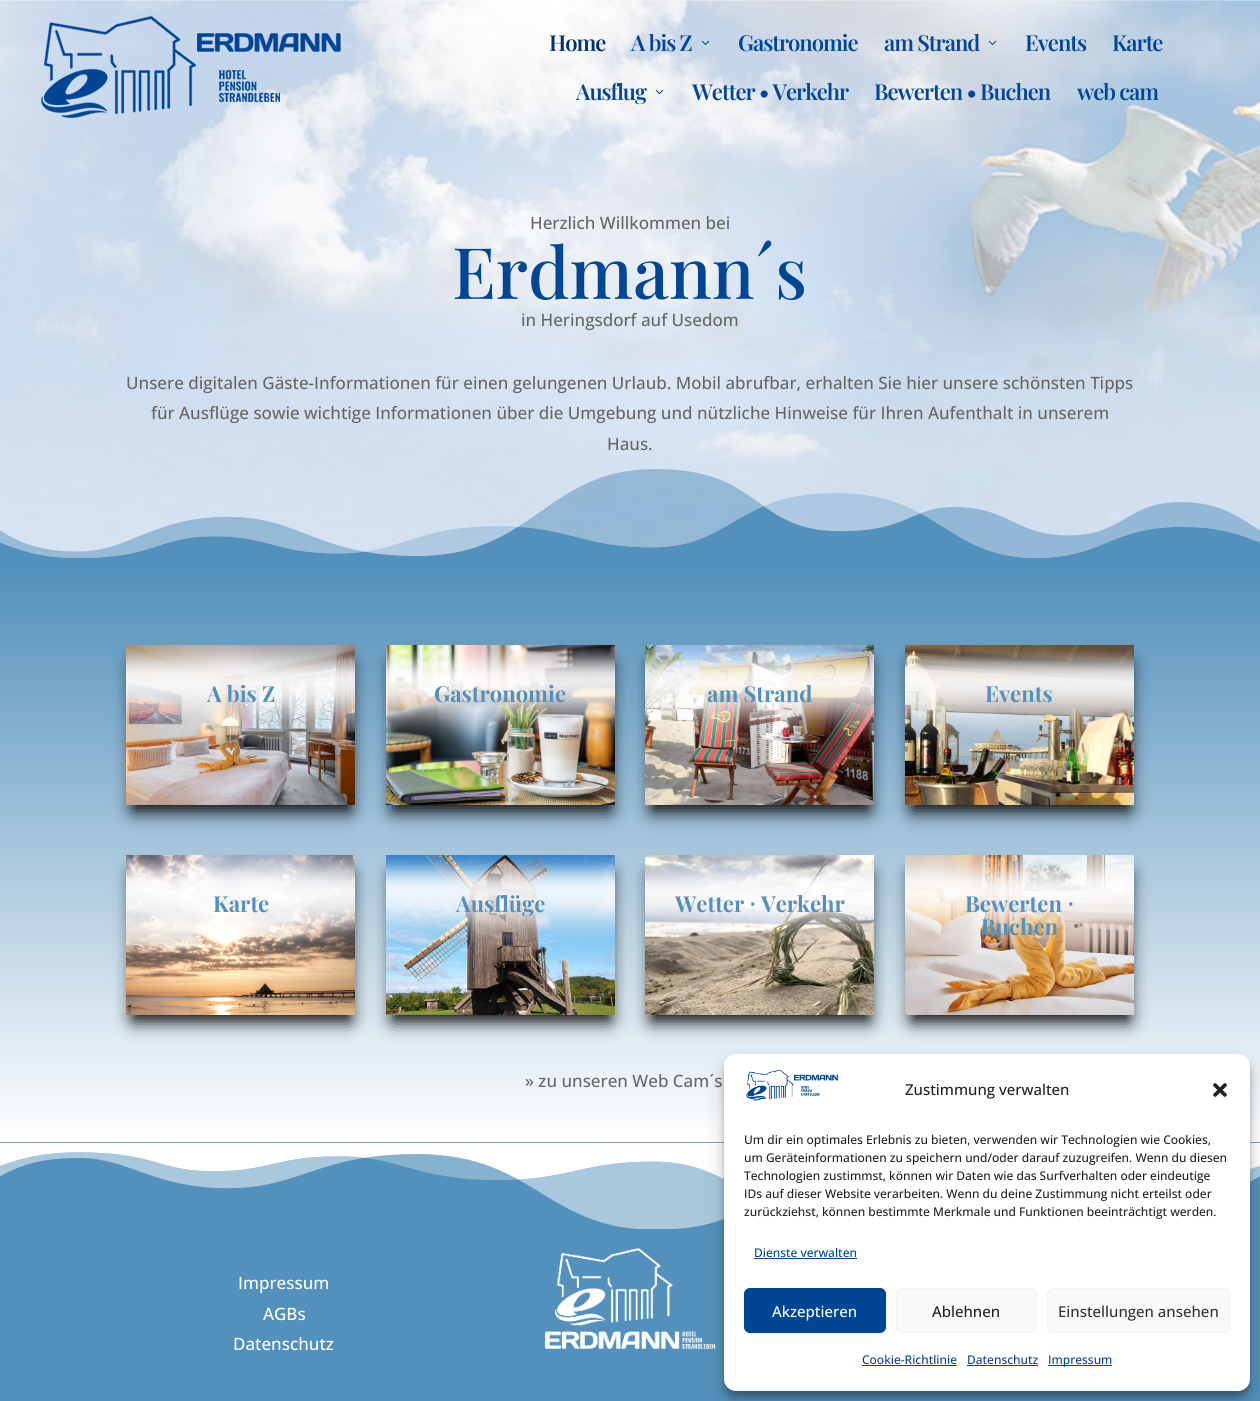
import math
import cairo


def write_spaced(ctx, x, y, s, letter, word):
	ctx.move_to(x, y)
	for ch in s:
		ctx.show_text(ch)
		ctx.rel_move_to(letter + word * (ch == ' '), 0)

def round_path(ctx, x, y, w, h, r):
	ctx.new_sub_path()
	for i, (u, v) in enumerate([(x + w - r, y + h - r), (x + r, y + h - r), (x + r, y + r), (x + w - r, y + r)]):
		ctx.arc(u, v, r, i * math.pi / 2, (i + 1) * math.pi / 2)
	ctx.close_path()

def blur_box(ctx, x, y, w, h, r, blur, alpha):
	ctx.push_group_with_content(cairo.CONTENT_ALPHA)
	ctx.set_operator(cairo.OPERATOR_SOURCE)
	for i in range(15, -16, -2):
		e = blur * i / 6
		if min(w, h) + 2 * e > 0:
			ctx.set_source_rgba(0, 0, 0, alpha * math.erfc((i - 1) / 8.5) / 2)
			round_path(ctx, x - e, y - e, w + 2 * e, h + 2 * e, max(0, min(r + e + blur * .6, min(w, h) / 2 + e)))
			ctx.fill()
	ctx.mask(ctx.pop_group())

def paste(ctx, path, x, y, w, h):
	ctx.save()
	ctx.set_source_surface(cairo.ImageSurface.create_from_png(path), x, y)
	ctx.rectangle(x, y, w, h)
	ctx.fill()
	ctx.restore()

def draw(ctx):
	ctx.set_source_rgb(1, 1, 1)
	ctx.paint()
	paste(ctx, 'media/5.png', 0, 0, 1260, 558)
	paste(ctx, 'media/1.png', 41, 16, 300, 102)
	ctx.select_font_face('Playfair Display SemiBold')
	ctx.set_font_size(22)
	ctx.set_source_rgb(0, 0.196, 0.439)
	write_spaced(ctx, 549, 51, 'Home', -1, 0)
	ctx.set_source_rgb(0, 0.275, 0.584)
	write_spaced(ctx, 631, 51, 'A bis Z', -1, 0)
	paste(ctx, 'media/2.png', 701, 40, 9, 5)
	write_spaced(ctx, 738, 51, 'Gastronomie', -1, 0)
	write_spaced(ctx, 884, 51, 'am Strand', -1, 0)
	paste(ctx, 'media/3.png', 988, 40, 9, 5)
	for x, y, s in [
		(1025, 51, 'Events'),
		(1112, 51, 'Karte'),
		(576, 100, 'Ausflug'),
	]:
		write_spaced(ctx, x, y, s, -1, 0)
	paste(ctx, 'media/4.png', 655, 89, 9, 5)
	for x, y, s in [
		(692, 100, 'Wetter • Verkehr'),
		(874, 100, 'Bewerten • Buchen'),
		(1077, 100, 'web cam'),
	]:
		write_spaced(ctx, x, y, s, -1, 0)
	ctx.select_font_face('Open Sans Medium')
	ctx.set_font_size(17)
	ctx.set_source_rgb(0.4, 0.4, 0.4)
	ctx.move_to(530, 229)
	ctx.show_text('Herzlich Willkommen bei')
	ctx.select_font_face('Playfair Display Medium')
	ctx.set_font_size(71)
	ctx.set_source_rgb(0, 0.275, 0.584)
	ctx.move_to(452, 299)
	ctx.show_text('Erdmann´s')
	ctx.select_font_face('Open Sans Medium')
	ctx.set_font_size(17)
	ctx.set_source_rgb(0.4, 0.4, 0.4)
	for x, y, s in [
		(521, 326, 'in Heringsdorf auf Usedom'),
		(126, 389, 'Unsere digitalen Gäste-Informationen für einen gelungenen Urlaub. Mobil abrufbar, erhalten Sie hier unsere schönsten Tipps'),
		(151, 419, 'für Ausflüge sowie wichtige Informationen über die Umgebung und nützliche Hinweise für Ihren Aufenthalt in unserem'),
		(607, 450, 'Haus.'),
	]:
		ctx.move_to(x, y)
		ctx.show_text(s)
	paste(ctx, 'media/6.png', 0, 469, 1260, 100)
	gradient = cairo.LinearGradient(630, 569, 630, 1142)
	gradient.add_color_stop_rgba(0, 0.325, 0.565, 0.733, 1)
	gradient.add_color_stop_rgba(1, 1, 1, 1, 1)
	ctx.set_source(gradient)
	ctx.rectangle(0, 569, 1260, 565)
	ctx.fill()
	ctx.set_source_rgb(0, 0, 0)
	blur_box(ctx, 133, 663, 217, 148, 0, 9, 1)
	paste(ctx, 'media/7.png', 126, 645, 229, 160)
	ctx.select_font_face('Playfair Display', cairo.FONT_SLANT_NORMAL, cairo.FONT_WEIGHT_BOLD)
	ctx.set_font_size(22)
	ctx.set_source_rgb(0.325, 0.565, 0.733)
	ctx.move_to(207, 702)
	ctx.show_text('A bis Z')
	ctx.set_source_rgb(0, 0, 0)
	blur_box(ctx, 393, 663, 217, 148, 0, 9, 1)
	paste(ctx, 'media/8.png', 386, 645, 229, 160)
	ctx.set_source_rgb(0.325, 0.565, 0.733)
	ctx.move_to(434, 702)
	ctx.show_text('Gastronomie')
	ctx.set_source_rgb(0, 0, 0)
	blur_box(ctx, 652, 663, 217, 148, 0, 9, 1)
	paste(ctx, 'media/9.png', 645, 645, 229, 160)
	ctx.set_source_rgb(0.325, 0.565, 0.733)
	ctx.move_to(707, 702)
	ctx.show_text('am Strand')
	ctx.set_source_rgb(0, 0, 0)
	blur_box(ctx, 912, 663, 217, 148, 0, 9, 1)
	paste(ctx, 'media/10.png', 905, 645, 229, 160)
	ctx.set_source_rgb(0.325, 0.565, 0.733)
	ctx.move_to(985, 702)
	ctx.show_text('Events')
	ctx.set_source_rgb(0, 0, 0)
	blur_box(ctx, 133, 873, 217, 148, 0, 9, 1)
	paste(ctx, 'media/11.png', 126, 855, 229, 160)
	ctx.set_source_rgb(0.325, 0.565, 0.733)
	ctx.move_to(213, 912)
	ctx.show_text('Karte')
	ctx.set_source_rgb(0, 0, 0)
	blur_box(ctx, 393, 873, 217, 148, 0, 9, 1)
	paste(ctx, 'media/12.png', 386, 855, 229, 160)
	ctx.set_source_rgb(0.325, 0.565, 0.733)
	ctx.move_to(456, 912)
	ctx.show_text('Ausflüge')
	ctx.set_source_rgb(0, 0, 0)
	blur_box(ctx, 652, 873, 217, 148, 0, 9, 1)
	paste(ctx, 'media/13.png', 645, 855, 229, 160)
	ctx.set_source_rgb(0.325, 0.565, 0.733)
	ctx.move_to(675, 912)
	ctx.show_text('Wetter')
	ctx.select_font_face('DejaVu Sans', cairo.FONT_SLANT_NORMAL, cairo.FONT_WEIGHT_BOLD)
	ctx.move_to(749, 912)
	ctx.show_text('⋅')
	ctx.select_font_face('Playfair Display', cairo.FONT_SLANT_NORMAL, cairo.FONT_WEIGHT_BOLD)
	ctx.move_to(761, 912)
	ctx.show_text('Verkehr')
	ctx.set_source_rgb(0, 0, 0)
	blur_box(ctx, 912, 873, 217, 148, 0, 9, 1)
	paste(ctx, 'media/14.png', 905, 855, 229, 160)
	ctx.set_source_rgb(0.325, 0.565, 0.733)
	ctx.move_to(965, 912)
	ctx.show_text('Bewerten')
	ctx.select_font_face('DejaVu Sans', cairo.FONT_SLANT_NORMAL, cairo.FONT_WEIGHT_BOLD)
	ctx.move_to(1067, 912)
	ctx.show_text('⋅')
	ctx.select_font_face('Playfair Display', cairo.FONT_SLANT_NORMAL, cairo.FONT_WEIGHT_BOLD)
	ctx.move_to(981, 935)
	ctx.show_text('Buchen')
	ctx.select_font_face('Open Sans Medium')
	ctx.set_font_size(17)
	ctx.set_source_rgb(0.4, 0.4, 0.4)
	ctx.move_to(525, 1087)
	ctx.show_text('» zu unseren Web Cam´s')
	ctx.set_source_rgb(0.325, 0.565, 0.733)
	ctx.rectangle(0, 1142, 1260, 259)
	ctx.fill()
	paste(ctx, 'media/15.png', 0, 1142, 1260, 87)
	ctx.set_source_rgb(1, 1, 1)
	for x, y, s in [
		(238, 1289, 'Impressum'),
		(263, 1320, 'AGBs'),
		(233, 1350, 'Datenschutz'),
	]:
		ctx.move_to(x, y)
		ctx.show_text(s)
	paste(ctx, 'media/16.png', 544, 1247, 172, 102)
	ctx.set_source_rgb(0, 0, 0)
	blur_box(ctx, 724, 1060, 526, 337, 12, 3, 0.23)
	blur_box(ctx, 724, 1064, 526, 337, 12, 10, 0.19)
	ctx.set_source_rgb(1, 1, 1)
	round_path(ctx, 724, 1054, 526, 337, 12)
	ctx.fill()
	paste(ctx, 'media/17.png', 746, 1069, 92, 32)
	ctx.set_font_size(15)
	ctx.set_source_rgb(0.133, 0.133, 0.133)
	ctx.move_to(905, 1095)
	ctx.show_text('Zustimmung verwalten')
	paste(ctx, 'media/18.png', 1213, 1083, 14, 14)
	ctx.set_font_size(12)
	for x, y, s in [
		(744, 1144, 'Um dir ein optimales Erlebnis zu bieten, verwenden wir Technologien wie Cookies,'),
		(744, 1162, 'um Geräteinformationen zu speichern und/oder darauf zuzugreifen. Wenn du diesen'),
		(744, 1180, 'Technologien zustimmst, können wir Daten wie das Surfverhalten oder eindeutige'),
		(744, 1198, 'IDs auf dieser Website verarbeiten. Wenn du deine Zustimmung nicht erteilst oder'),
		(744, 1216, 'zurückziehst, können bestimmte Merkmale und Funktionen beeinträchtigt werden.'),
	]:
		ctx.move_to(x, y)
		ctx.show_text(s)
	ctx.set_source_rgb(0, 0.275, 0.584)
	ctx.move_to(754, 1257)
	ctx.show_text('Dienste verwalten')
	ctx.rectangle(754, 1258, 103, 1)
	ctx.fill()
	round_path(ctx, 744.5, 1288.5, 141, 44, 5.5)
	ctx.fill_preserve()
	ctx.set_line_width(1)
	ctx.stroke()
	ctx.set_font_size(15)
	ctx.set_source_rgb(1, 1, 1)
	ctx.move_to(772, 1317)
	ctx.show_text('Akzeptieren')
	ctx.set_source_rgb(0.976, 0.976, 0.976)
	round_path(ctx, 896.5, 1288.5, 140, 44, 5.5)
	ctx.fill_preserve()
	ctx.set_source_rgb(0.949, 0.949, 0.949)
	ctx.stroke()
	ctx.set_source_rgb(0.133, 0.133, 0.133)
	ctx.move_to(932, 1317)
	ctx.show_text('Ablehnen')
	ctx.set_source_rgb(0.976, 0.976, 0.976)
	round_path(ctx, 1047.5, 1288.5, 182, 44, 5.5)
	ctx.fill_preserve()
	ctx.set_source_rgb(0.949, 0.949, 0.949)
	ctx.stroke()
	ctx.set_source_rgb(0.2, 0.2, 0.2)
	ctx.move_to(1058, 1317)
	ctx.show_text('Einstellungen ansehen')
	ctx.set_font_size(12)
	ctx.set_source_rgb(0, 0.275, 0.584)
	ctx.move_to(862, 1364)
	ctx.show_text('Cookie-Richtlinie')
	ctx.rectangle(862, 1365, 95, 1)
	ctx.fill()
	ctx.move_to(967, 1364)
	ctx.show_text('Datenschutz')
	ctx.rectangle(967, 1365, 71, 1)
	ctx.fill()
	ctx.rectangle(1048, 1365, 64, 1)
	ctx.fill()
	ctx.move_to(1048, 1364)
	ctx.show_text('Impressum')


surface = cairo.ImageSurface(cairo.FORMAT_RGB24, 1260, 1401)
ctx = cairo.Context(surface)
options = cairo.FontOptions()
options.set_hint_metrics(cairo.HINT_METRICS_OFF)
options.set_hint_style(cairo.HINT_STYLE_NONE)
ctx.set_font_options(options)
ctx.set_miter_limit(4)
draw(ctx)
surface.write_to_png('image.png')
